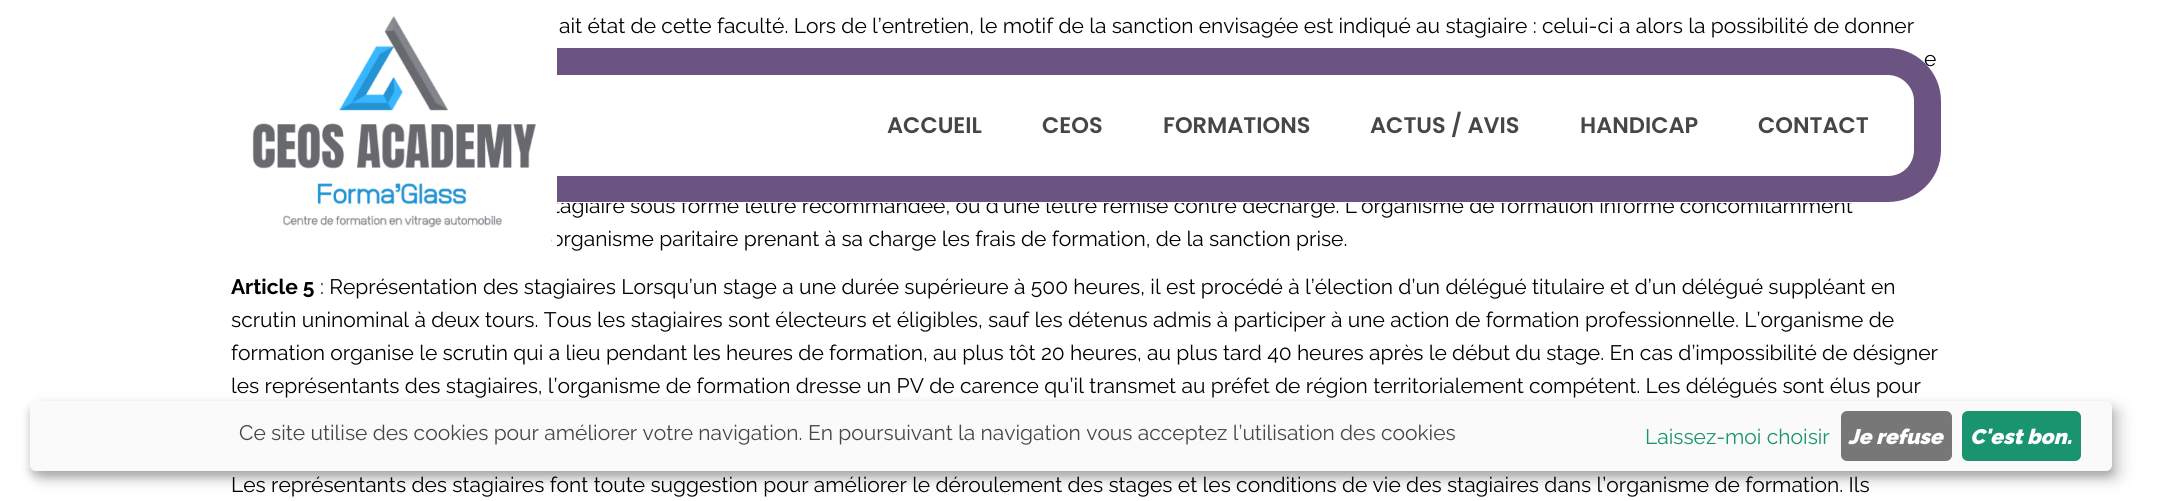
import math
import cairo


def round_path(ctx, x, y, w, h, r):
	ctx.new_sub_path()
	for i, (u, v) in enumerate([(x + w - r, y + h - r), (x + r, y + h - r), (x + r, y + r), (x + w - r, y + r)]):
		ctx.arc(u, v, r, i * math.pi / 2, (i + 1) * math.pi / 2)
	ctx.close_path()

def blur_box(ctx, x, y, w, h, r, blur, alpha):
	ctx.push_group_with_content(cairo.CONTENT_ALPHA)
	ctx.set_operator(cairo.OPERATOR_SOURCE)
	for i in range(15, -16, -2):
		e = blur * i / 6
		if min(w, h) + 2 * e > 0:
			ctx.set_source_rgba(0, 0, 0, alpha * math.erfc((i - 1) / 8.5) / 2)
			round_path(ctx, x - e, y - e, w + 2 * e, h + 2 * e, max(0, min(r + e + blur * .6, min(w, h) / 2 + e)))
			ctx.fill()
	ctx.mask(ctx.pop_group())

def paste(ctx, path, x, y, w, h):
	ctx.save()
	ctx.set_source_surface(cairo.ImageSurface.create_from_png(path), x, y)
	ctx.rectangle(x, y, w, h)
	ctx.fill()
	ctx.restore()

def draw(ctx):
	ctx.set_source_rgb(1, 1, 1)
	ctx.paint()
	ctx.select_font_face('Raleway')
	ctx.set_font_size(21)
	ctx.set_source_rgb(0, 0, 0)
	for x, y, s in [
		(559, 33, 'ait état de cette faculté. Lors de l’entretien, le motif de la sanction envisagée est indiqué au stagiaire : celui-ci a alors la possibilité de donner'),
		(1924, 66, 'e'),
		(553, 213, 'tagiaire sous forme lettre recommandée, ou d’une lettre remise contre décharge. L’organisme de formation informe concomitamment'),
		(551, 246, 'organisme paritaire prenant à sa charge les frais de formation, de la sanction prise.'),
	]:
		ctx.move_to(x, y)
		ctx.show_text(s)
	ctx.select_font_face('Raleway', cairo.FONT_SLANT_NORMAL, cairo.FONT_WEIGHT_BOLD)
	ctx.move_to(231, 294)
	ctx.show_text('Article 5')
	ctx.select_font_face('Raleway')
	for x, y, s in [
		(320, 294, ': Représentation des stagiaires Lorsqu’un stage a une durée supérieure à 500 heures, il est procédé à l’élection d’un délégué titulaire et d’un délégué suppléant en'),
		(231, 327, 'scrutin uninominal à deux tours. Tous les stagiaires sont électeurs et éligibles, sauf les détenus admis à participer à une action de formation professionnelle. L’organisme de'),
		(231, 360, 'formation organise le scrutin qui a lieu pendant les heures de formation, au plus tôt 20 heures, au plus tard 40 heures après le début du stage. En cas d’impossibilité de désigner'),
		(231, 393, 'les représentants des stagiaires, l’organisme de formation dresse un PV de carence qu’il transmet au préfet de région territorialement compétent. Les délégués sont élus pour'),
		(231, 492, 'Les représentants des stagiaires font toute suggestion pour améliorer le déroulement des stages et les conditions de vie des stagiaires dans l’organisme de formation. Ils'),
	]:
		ctx.move_to(x, y)
		ctx.show_text(s)
	ctx.set_source_rgb(1, 1, 1)
	ctx.new_path()
	ctx.move_to(557, 48)
	ctx.line_to(1887, 48)
	ctx.curve_to(1917, 48, 1941, 72, 1941, 102)
	ctx.line_to(1941, 150)
	ctx.curve_to(1941, 179.5, 1917.5, 203, 1888, 203)
	ctx.line_to(557, 203)
	ctx.close_path()
	ctx.fill()
	ctx.set_source_rgb(0.42, 0.329, 0.51)
	ctx.set_fill_rule(cairo.FILL_RULE_EVEN_ODD)
	ctx.new_path()
	ctx.move_to(556, 48)
	ctx.line_to(1888, 48)
	ctx.curve_to(1917, 48, 1941, 72, 1941, 101)
	ctx.line_to(1941, 150)
	ctx.curve_to(1941, 179, 1917, 202, 1888, 202)
	ctx.line_to(556, 202)
	ctx.close_path()
	ctx.move_to(556, 75)
	ctx.line_to(1888, 75)
	ctx.curve_to(1902, 75, 1914, 87, 1914, 101)
	ctx.line_to(1914, 150)
	ctx.curve_to(1914, 164, 1903, 176, 1888, 176)
	ctx.line_to(556, 176)
	ctx.close_path()
	ctx.fill()
	ctx.set_source_rgb(1, 1, 1)
	ctx.rectangle(552, 48, 5, 199)
	ctx.fill()
	paste(ctx, 'media/1.png', 252, 16, 285, 212)
	ctx.select_font_face('Poppins SemiBold')
	ctx.set_font_size(22.5)
	ctx.set_source_rgb(0.275, 0.275, 0.275)
	for x, y, s in [
		(887, 133, 'ACCUEIL'),
		(1042, 133, 'CEOS'),
		(1163, 133, 'FORMATIONS'),
		(1370, 133, 'ACTUS / AVIS'),
		(1580, 133, 'HANDICAP'),
		(1758, 133, 'CONTACT'),
	]:
		ctx.move_to(x, y)
		ctx.show_text(s)
	ctx.set_source_rgb(0, 0, 0)
	blur_box(ctx, 38, 408, 2082, 71, 6, 7.5, 0.19)
	blur_box(ctx, 30, 407, 2082, 70, 6, 4.5, 0.2)
	ctx.set_source_rgb(0.98, 0.98, 0.98)
	round_path(ctx, 30, 401, 2082, 70, 6)
	ctx.fill()
	ctx.select_font_face('Raleway')
	ctx.set_font_size(21)
	ctx.set_source_rgb(0.275, 0.275, 0.275)
	ctx.move_to(239, 440)
	ctx.show_text('Ce site utilise des cookies pour améliorer votre navigation. En poursuivant la navigation vous acceptez l’utilisation des cookies')
	ctx.set_source_rgb(0.102, 0.576, 0.435)
	ctx.move_to(1645, 444)
	ctx.show_text('Laissez-moi choisir')
	ctx.set_source_rgb(0.467, 0.467, 0.467)
	round_path(ctx, 1841, 411, 111, 50, 6)
	ctx.fill()
	ctx.select_font_face('Raleway Black', cairo.FONT_SLANT_ITALIC)
	ctx.set_source_rgb(1, 1, 1)
	ctx.move_to(1848, 444)
	ctx.show_text('Je refuse')
	ctx.set_source_rgb(0.102, 0.576, 0.435)
	round_path(ctx, 1962, 411, 119, 50, 6)
	ctx.fill()
	ctx.set_source_rgb(1, 1, 1)
	ctx.move_to(1970, 444)
	ctx.show_text('C\'est bon.')


surface = cairo.ImageSurface(cairo.FORMAT_RGB24, 2172, 501)
ctx = cairo.Context(surface)
options = cairo.FontOptions()
options.set_hint_metrics(cairo.HINT_METRICS_OFF)
options.set_hint_style(cairo.HINT_STYLE_NONE)
ctx.set_font_options(options)
ctx.set_miter_limit(4)
draw(ctx)
surface.write_to_png('image.png')
